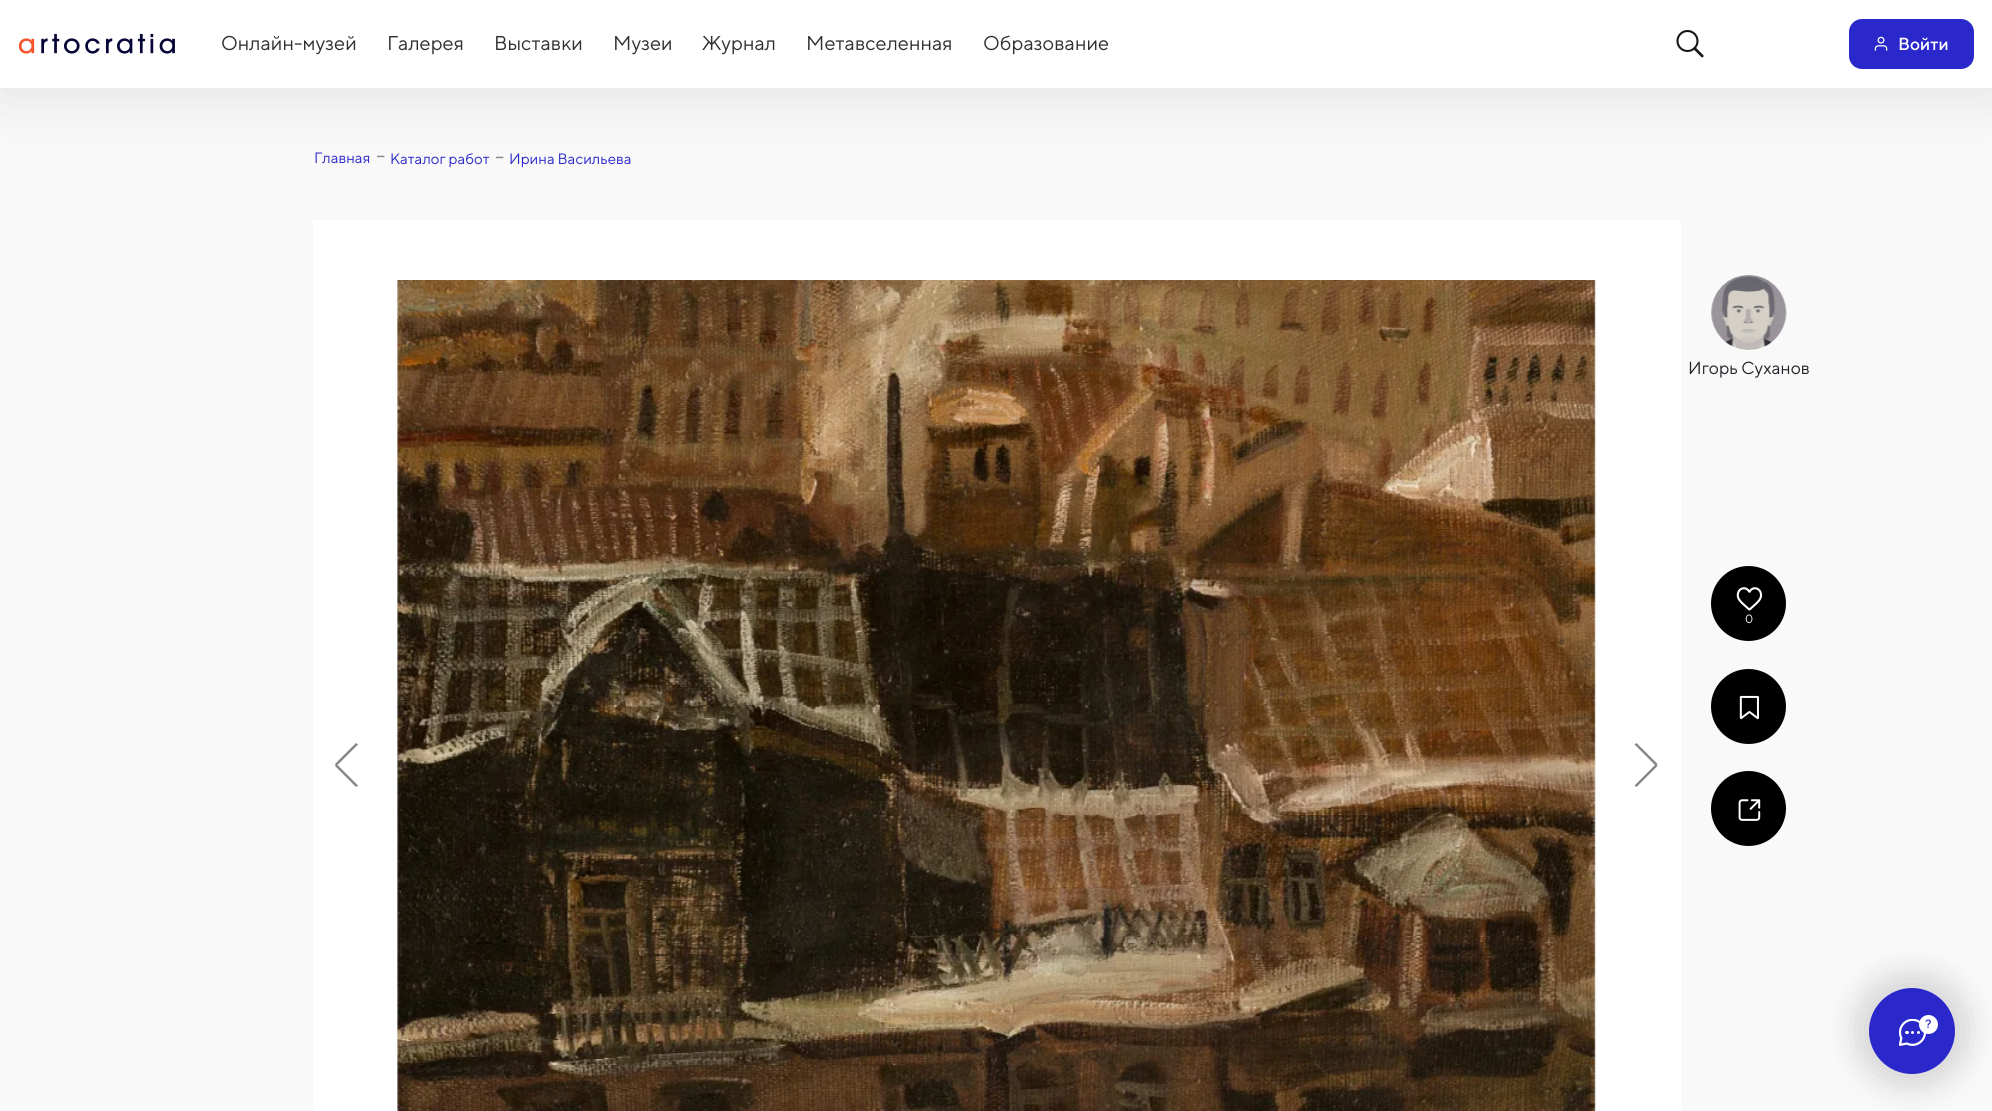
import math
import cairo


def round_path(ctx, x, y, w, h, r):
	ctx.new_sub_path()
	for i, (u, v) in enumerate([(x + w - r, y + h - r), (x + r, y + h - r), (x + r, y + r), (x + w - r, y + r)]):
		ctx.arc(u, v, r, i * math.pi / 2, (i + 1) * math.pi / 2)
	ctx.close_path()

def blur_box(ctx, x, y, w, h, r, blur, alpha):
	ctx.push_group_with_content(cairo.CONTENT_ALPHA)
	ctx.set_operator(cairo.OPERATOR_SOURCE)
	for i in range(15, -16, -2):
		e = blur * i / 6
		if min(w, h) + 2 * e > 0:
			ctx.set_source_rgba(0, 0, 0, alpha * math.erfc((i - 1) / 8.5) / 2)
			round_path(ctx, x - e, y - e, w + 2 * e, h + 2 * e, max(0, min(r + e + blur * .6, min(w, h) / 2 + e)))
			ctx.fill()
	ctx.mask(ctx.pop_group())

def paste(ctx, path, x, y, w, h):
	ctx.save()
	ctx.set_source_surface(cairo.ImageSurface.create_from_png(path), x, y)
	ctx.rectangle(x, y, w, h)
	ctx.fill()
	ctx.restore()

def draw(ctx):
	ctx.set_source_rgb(0.973, 0.973, 0.973)
	ctx.paint()
	ctx.set_source_rgb(0, 0, 0)
	blur_box(ctx, 0, 5, 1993, 88, 0, 31, 0.1)
	ctx.set_source_rgb(1, 1, 1)
	ctx.rectangle(0, 0, 1992, 88)
	ctx.fill()
	paste(ctx, 'media/1.png', 19, 33, 156, 21)
	ctx.select_font_face('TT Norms')
	ctx.set_font_size(20)
	ctx.set_source_rgb(0.188, 0.188, 0.188)
	for x, y, s in [
		(221, 50, 'Онлайн-музей'),
		(387, 50, 'Галерея'),
		(494, 50, 'Выставки'),
		(613, 50, 'Музеи'),
		(702, 50, 'Журнал'),
		(806, 50, 'Метавселенная'),
		(983, 50, 'Образование'),
	]:
		ctx.move_to(x, y)
		ctx.show_text(s)
	paste(ctx, 'media/2.png', 1676, 30, 28, 28)
	ctx.set_source_rgb(0.169, 0.157, 0.796)
	round_path(ctx, 1849, 19, 125, 50, 13)
	ctx.fill()
	paste(ctx, 'media/3.png', 1874, 36, 14, 15)
	ctx.select_font_face('TT Norms Medium')
	ctx.set_font_size(17.5)
	ctx.set_source_rgb(1, 1, 1)
	ctx.move_to(1898, 50)
	ctx.show_text('Войти')
	ctx.select_font_face('TT Norms')
	ctx.set_font_size(15)
	ctx.set_source_rgb(0.169, 0.157, 0.796)
	ctx.move_to(314, 163)
	ctx.show_text('Главная')
	ctx.set_font_size(22)
	ctx.set_source_rgb(0.529, 0.529, 0.529)
	ctx.move_to(376, 163)
	ctx.show_text('-')
	ctx.set_font_size(15)
	ctx.set_source_rgb(0.169, 0.157, 0.796)
	ctx.move_to(390, 164)
	ctx.show_text('Каталог работ')
	ctx.set_font_size(22)
	ctx.set_source_rgb(0.529, 0.529, 0.529)
	ctx.move_to(495, 164)
	ctx.show_text('-')
	ctx.set_font_size(15)
	ctx.set_source_rgb(0.169, 0.157, 0.796)
	ctx.move_to(509, 164)
	ctx.show_text('Ирина Васильева')
	ctx.set_source_rgb(1, 1, 1)
	ctx.rectangle(313, 220, 1368, 891)
	ctx.fill()
	ctx.set_source_rgb(0.529, 0.529, 0.529)
	ctx.new_path()
	ctx.move_to(358, 785.5)
	ctx.line_to(356, 787)
	ctx.line_to(335, 766)
	ctx.line_to(336.5, 764)
	ctx.close_path()
	ctx.fill()
	ctx.new_path()
	ctx.move_to(358, 744.5)
	ctx.line_to(336.5, 766)
	ctx.line_to(335, 764)
	ctx.line_to(356, 743)
	ctx.close_path()
	ctx.fill()
	paste(ctx, 'media/4.png', 397, 280, 1199, 831)
	ctx.new_path()
	ctx.move_to(1634.5, 744.5)
	ctx.line_to(1636.5, 743)
	ctx.line_to(1657.5, 764)
	ctx.line_to(1656, 766)
	ctx.close_path()
	ctx.fill()
	ctx.new_path()
	ctx.move_to(1634.5, 785.5)
	ctx.line_to(1656, 764)
	ctx.line_to(1657.5, 766)
	ctx.line_to(1636.5, 787)
	ctx.close_path()
	ctx.fill()
	paste(ctx, 'media/5.png', 1711, 275, 76, 75)
	ctx.set_font_size(17.5)
	ctx.set_source_rgb(0.129, 0.145, 0.161)
	ctx.move_to(1688, 374)
	ctx.show_text('Игорь Суханов')
	ctx.set_source_rgb(0, 0, 0)
	ctx.new_path()
	ctx.arc(1748.5, 603.5, 37.5, 0, 2 * math.pi)
	ctx.fill()
	paste(ctx, 'media/6.png', 1736, 587, 27, 24)
	ctx.set_font_size(12)
	ctx.set_source_rgb(1, 1, 1)
	ctx.move_to(1745, 623)
	ctx.show_text('0')
	ctx.set_source_rgb(0, 0, 0)
	ctx.new_path()
	ctx.arc(1748.5, 706.5, 37.5, 0, 2 * math.pi)
	ctx.fill()
	paste(ctx, 'media/7.png', 1739, 695, 20, 25)
	ctx.arc(1748.5, 808.5, 37.5, 0, 2 * math.pi)
	ctx.fill()
	paste(ctx, 'media/8.png', 1738, 799, 23, 22)
	ctx.set_source_rgb(0, 0, 0)
	blur_box(ctx, 1856, 975, 112, 111, 55.5, 15.5, 0.15)
	ctx.set_source_rgb(0.169, 0.157, 0.796)
	ctx.arc(1912, 1031, 43, 0, 2 * math.pi)
	ctx.fill()
	paste(ctx, 'media/9.png', 1899, 1019, 27, 27)
	ctx.set_source_rgb(1, 1, 1)
	ctx.arc(1928.5, 1024.5, 9.5, 0, 2 * math.pi)
	ctx.fill()
	ctx.select_font_face('TT Norms Medium')
	ctx.set_source_rgb(0.169, 0.157, 0.796)
	ctx.move_to(1925, 1028)
	ctx.show_text('?')


surface = cairo.ImageSurface(cairo.FORMAT_RGB24, 1992, 1111)
ctx = cairo.Context(surface)
options = cairo.FontOptions()
options.set_hint_metrics(cairo.HINT_METRICS_OFF)
options.set_hint_style(cairo.HINT_STYLE_NONE)
ctx.set_font_options(options)
ctx.set_miter_limit(4)
draw(ctx)
surface.write_to_png('image.png')
